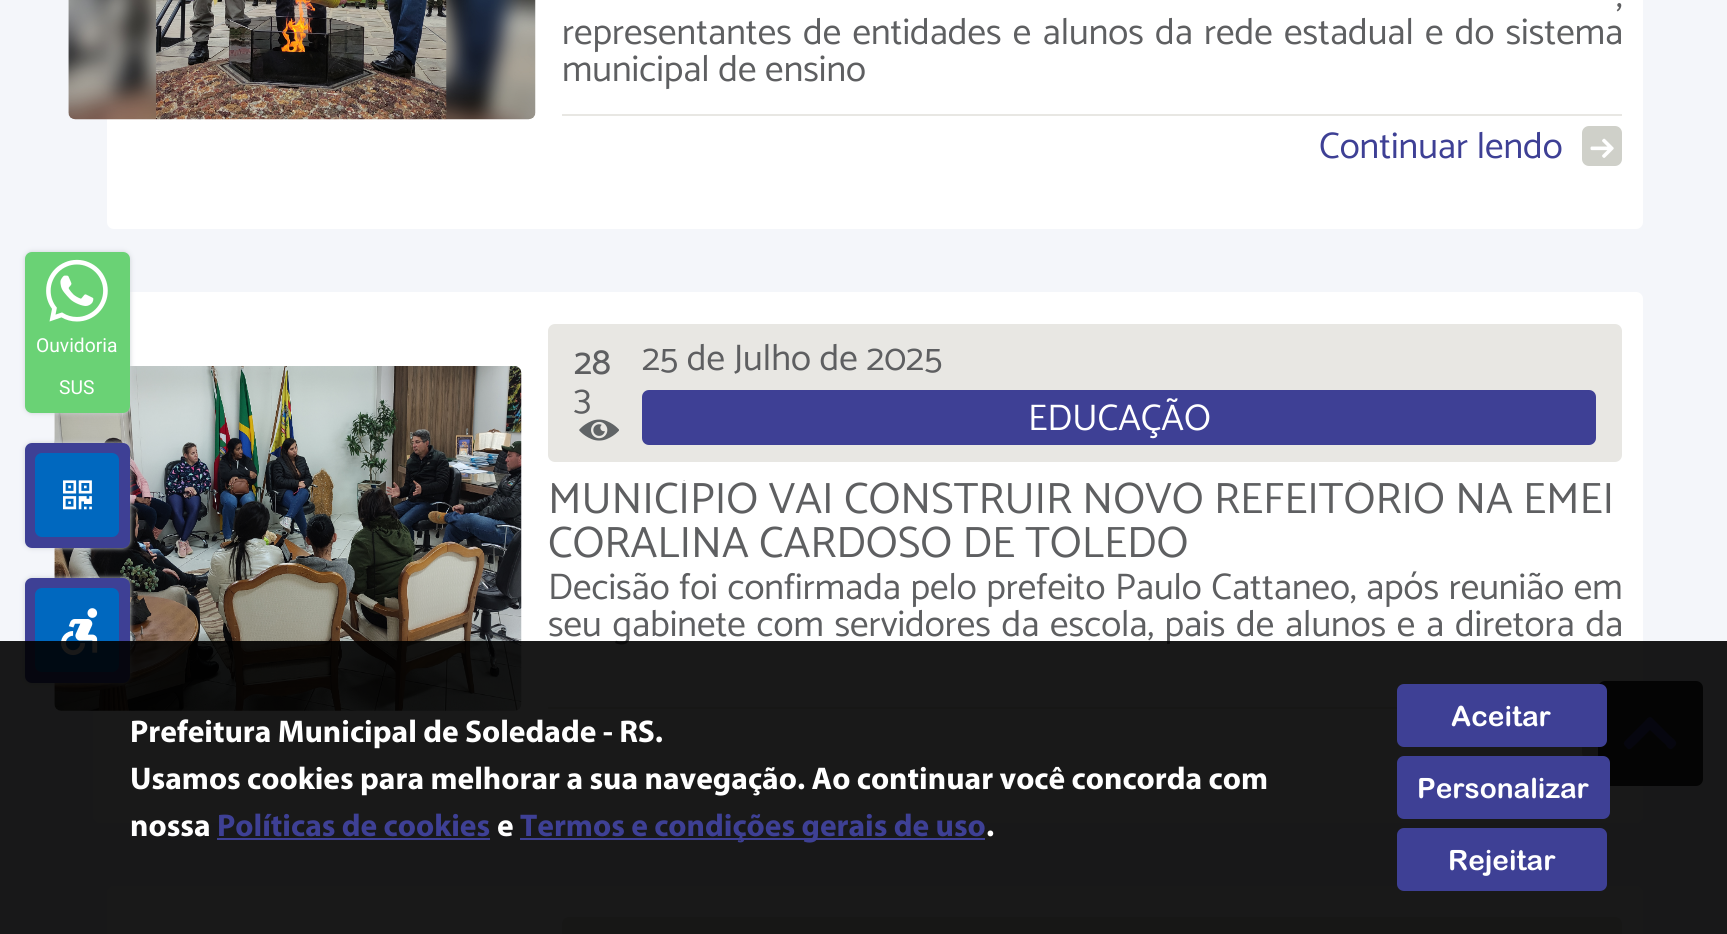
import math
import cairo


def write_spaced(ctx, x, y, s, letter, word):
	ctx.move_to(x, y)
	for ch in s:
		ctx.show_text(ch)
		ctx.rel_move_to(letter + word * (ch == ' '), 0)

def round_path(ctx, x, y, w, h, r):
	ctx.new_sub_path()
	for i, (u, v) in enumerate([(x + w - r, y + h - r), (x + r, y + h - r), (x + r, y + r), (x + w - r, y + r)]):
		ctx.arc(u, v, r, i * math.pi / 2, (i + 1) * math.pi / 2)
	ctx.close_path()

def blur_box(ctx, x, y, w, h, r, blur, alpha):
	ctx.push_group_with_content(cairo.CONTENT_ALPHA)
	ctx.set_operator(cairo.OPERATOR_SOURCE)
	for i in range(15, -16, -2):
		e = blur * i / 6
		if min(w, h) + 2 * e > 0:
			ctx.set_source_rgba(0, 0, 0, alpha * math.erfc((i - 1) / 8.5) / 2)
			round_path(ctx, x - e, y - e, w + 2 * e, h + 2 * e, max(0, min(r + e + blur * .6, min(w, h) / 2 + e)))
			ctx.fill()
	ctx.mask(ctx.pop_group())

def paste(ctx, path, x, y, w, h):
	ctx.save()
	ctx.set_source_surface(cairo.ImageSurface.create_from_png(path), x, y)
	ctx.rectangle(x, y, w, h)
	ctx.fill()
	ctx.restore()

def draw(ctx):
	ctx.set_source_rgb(0.957, 0.961, 0.98)
	ctx.paint()
	ctx.set_source_rgb(1, 1, 1)
	round_path(ctx, 93, 292, 1550, 531, 7)
	ctx.fill()
	paste(ctx, 'media/6.png', 54, 366, 468, 345)
	ctx.set_source_rgb(0.796, 0.816, 0.839)
	blur_box(ctx, 25, 252, 105, 161, 7, 2.5, 1)
	ctx.set_source_rgb(0.416, 0.824, 0.459)
	round_path(ctx, 25, 252, 105, 161, 7)
	ctx.fill()
	paste(ctx, 'media/1.png', 46, 259, 62, 63)
	ctx.select_font_face('Roboto')
	ctx.set_font_size(19.25)
	ctx.set_source_rgb(1, 1, 1)
	ctx.move_to(36, 352)
	ctx.show_text('Ouvidoria')
	ctx.move_to(59, 394)
	ctx.show_text('SUS')
	ctx.set_source_rgb(0.796, 0.816, 0.839)
	blur_box(ctx, 25, 443, 105, 105, 7, 2.5, 1)
	ctx.set_source_rgb(0.243, 0.251, 0.584)
	round_path(ctx, 25, 443, 105, 105, 7)
	ctx.fill()
	ctx.set_source_rgb(0, 0.408, 0.749)
	round_path(ctx, 35, 453, 84, 84, 7)
	ctx.fill()
	paste(ctx, 'media/2.png', 63, 480, 29, 30)
	ctx.set_source_rgb(0.796, 0.816, 0.839)
	blur_box(ctx, 25, 578, 105, 105, 7, 2.5, 1)
	ctx.set_source_rgb(0.243, 0.251, 0.584)
	round_path(ctx, 25, 578, 105, 105, 7)
	ctx.fill()
	ctx.set_source_rgb(0, 0.408, 0.749)
	round_path(ctx, 35, 588, 84, 84, 7)
	ctx.fill()
	paste(ctx, 'media/3.png', 61, 608, 37, 48)
	ctx.set_source_rgb(1, 1, 1)
	round_path(ctx, 107, -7, 1536, 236, 7)
	ctx.fill()
	paste(ctx, 'media/4.png', 68, 0, 468, 120)
	ctx.select_font_face('Catamaran')
	ctx.set_font_size(37.1)
	ctx.set_source_rgb(0.369, 0.373, 0.38)
	write_spaced(ctx, 1616, 7, ',', 0, 32)
	write_spaced(ctx, 562, 44, 'representantes de entidades e alunos da rede estadual e do sistema', 0, 2.6)
	ctx.move_to(562, 81)
	ctx.show_text('municipal de ensino')
	ctx.set_source_rgb(0.91, 0.906, 0.89)
	ctx.rectangle(562, 114, 1060, 2)
	ctx.fill()
	ctx.set_source_rgb(0.243, 0.251, 0.584)
	ctx.move_to(1319, 158)
	ctx.show_text('Continuar lendo')
	ctx.set_source_rgb(0.812, 0.816, 0.788)
	round_path(ctx, 1582, 126, 40, 40, 7)
	ctx.fill()
	paste(ctx, 'media/5.png', 1590, 138, 24, 20)
	ctx.set_source_rgb(0.91, 0.906, 0.89)
	round_path(ctx, 548, 324, 1074, 138, 7)
	ctx.fill()
	ctx.select_font_face('Catamaran Medium')
	ctx.set_source_rgb(0.369, 0.373, 0.38)
	ctx.move_to(574, 374)
	ctx.show_text('28')
	ctx.select_font_face('Catamaran')
	ctx.move_to(574, 411)
	ctx.show_text('3')
	paste(ctx, 'media/7.png', 579, 419, 40, 22)
	ctx.move_to(642, 370)
	ctx.show_text('25 de Julho de 2025')
	ctx.set_source_rgb(0.243, 0.251, 0.584)
	round_path(ctx, 642, 390, 954, 55, 7)
	ctx.fill()
	ctx.set_source_rgb(1, 1, 1)
	ctx.move_to(1028, 430)
	ctx.show_text('EDUCAÇÃO')
	ctx.save()
	ctx.rectangle(548, 480, 1074, 87)
	ctx.clip()
	ctx.set_font_size(44)
	ctx.set_source_rgb(0.369, 0.373, 0.38)
	ctx.move_to(548, 513)
	ctx.show_text('MUNICÍPIO VAI CONSTRUIR NOVO REFEITÓRIO NA EMEI')
	ctx.restore()
	ctx.set_font_size(44)
	ctx.set_source_rgb(0.369, 0.373, 0.38)
	ctx.move_to(548, 557)
	ctx.show_text('CORALINA CARDOSO DE TOLEDO')
	ctx.set_font_size(37.1)
	write_spaced(ctx, 548, 599, 'Decisão foi confirmada pelo prefeito Paulo Cattaneo, após reunião em', 0, 1)
	write_spaced(ctx, 548, 636, 'seu gabinete com servidores da escola, pais de alunos e a diretora da', 0, 2.1)
	ctx.set_source_rgb(0.91, 0.906, 0.89)
	ctx.rectangle(548, 707, 849, 2)
	ctx.fill()
	ctx.set_source_rgb(0.812, 0.816, 0.788)
	round_path(ctx, 1582, 719, 40, 41, 7)
	ctx.fill()
	ctx.set_source_rgb(1, 1, 1)
	round_path(ctx, 107, 886, 1536, 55, 7)
	ctx.fill()
	ctx.set_source_rgb(0.91, 0.906, 0.89)
	round_path(ctx, 562, 917, 1060, 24, 7)
	ctx.fill()
	ctx.set_source_rgb(0.173, 0.173, 0.173)
	round_path(ctx, 1598, 681, 105, 105, 7)
	ctx.fill()
	ctx.set_source_rgb(0.243, 0.251, 0.584)
	ctx.new_path()
	ctx.move_to(1652, 718)
	ctx.line_to(1668, 734)
	ctx.curve_to(1674, 740, 1680, 742, 1673, 748)
	ctx.curve_to(1670, 751, 1667, 747, 1666, 745)
	ctx.line_to(1650, 730)
	ctx.line_to(1635, 745)
	ctx.curve_to(1633, 746, 1631, 750, 1628, 749)
	ctx.line_to(1626, 747)
	ctx.curve_to(1622, 743, 1624, 742, 1629, 737)
	ctx.line_to(1644, 722)
	ctx.curve_to(1646, 720, 1649, 715, 1652, 718)
	ctx.close_path()
	ctx.fill()
	ctx.set_source_rgba(0, 0, 0, 0.9)
	ctx.rectangle(0, 641, 1727, 293)
	ctx.fill()
	ctx.select_font_face('Myriad', cairo.FONT_SLANT_NORMAL, cairo.FONT_WEIGHT_BOLD)
	ctx.set_font_size(31.5)
	ctx.set_source_rgb(1, 1, 1)
	for x, y, s in [
		(130, 742, 'Prefeitura Municipal de Soledade - RS.'),
		(130, 789, 'Usamos cookies para melhorar a sua navegação. Ao continuar você concorda com'),
		(130, 836, 'nossa'),
	]:
		ctx.move_to(x, y)
		ctx.show_text(s)
	ctx.set_source_rgb(0.243, 0.251, 0.584)
	ctx.move_to(217, 836)
	ctx.show_text('Políticas de cookies')
	ctx.rectangle(217, 838, 273, 2)
	ctx.fill()
	ctx.set_source_rgb(1, 1, 1)
	ctx.move_to(497, 836)
	ctx.show_text('e')
	ctx.set_source_rgb(0.243, 0.251, 0.584)
	ctx.rectangle(520, 838, 465, 2)
	ctx.fill()
	ctx.move_to(520, 836)
	ctx.show_text('Termos e condições gerais de uso')
	ctx.set_source_rgb(1, 1, 1)
	ctx.move_to(986, 836)
	ctx.show_text('.')
	ctx.set_source_rgb(0.243, 0.251, 0.584)
	round_path(ctx, 1397, 684, 210, 63, 7)
	ctx.fill()
	ctx.select_font_face('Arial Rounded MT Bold', cairo.FONT_SLANT_NORMAL, cairo.FONT_WEIGHT_BOLD)
	ctx.set_font_size(28)
	ctx.set_source_rgb(1, 1, 1)
	ctx.move_to(1451, 726)
	ctx.show_text('Aceitar')
	ctx.set_source_rgb(0.243, 0.251, 0.584)
	round_path(ctx, 1397, 756, 213, 63, 7)
	ctx.fill()
	ctx.set_source_rgb(1, 1, 1)
	ctx.move_to(1417, 798)
	ctx.show_text('Personalizar')
	ctx.set_source_rgb(0.243, 0.251, 0.584)
	round_path(ctx, 1397, 828, 210, 63, 7)
	ctx.fill()
	ctx.set_source_rgb(1, 1, 1)
	ctx.move_to(1448, 870)
	ctx.show_text('Rejeitar')


surface = cairo.ImageSurface(cairo.FORMAT_RGB24, 1727, 934)
ctx = cairo.Context(surface)
options = cairo.FontOptions()
options.set_hint_metrics(cairo.HINT_METRICS_OFF)
options.set_hint_style(cairo.HINT_STYLE_NONE)
ctx.set_font_options(options)
ctx.set_miter_limit(4)
draw(ctx)
surface.write_to_png('image.png')
